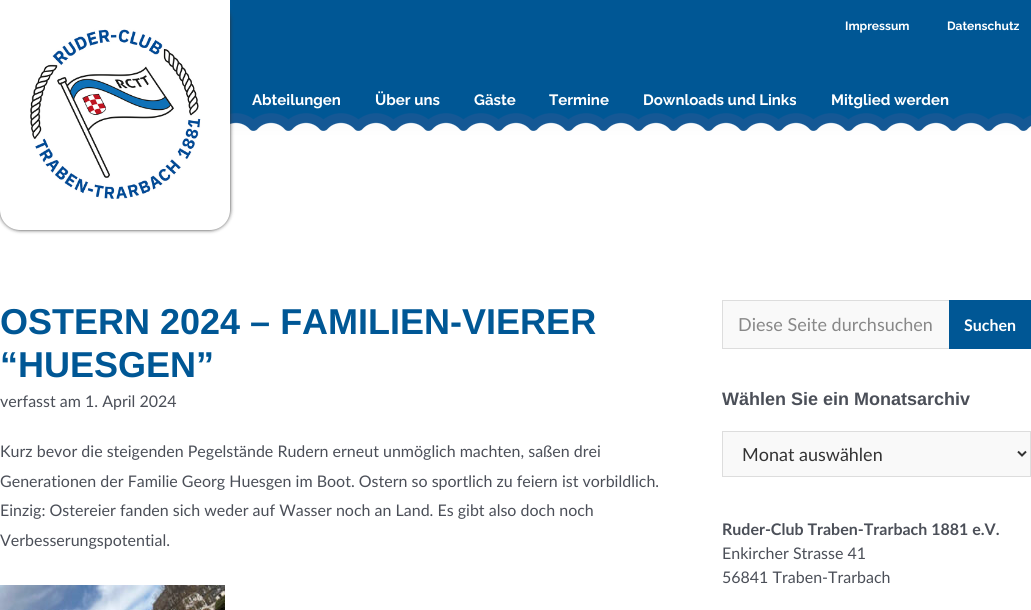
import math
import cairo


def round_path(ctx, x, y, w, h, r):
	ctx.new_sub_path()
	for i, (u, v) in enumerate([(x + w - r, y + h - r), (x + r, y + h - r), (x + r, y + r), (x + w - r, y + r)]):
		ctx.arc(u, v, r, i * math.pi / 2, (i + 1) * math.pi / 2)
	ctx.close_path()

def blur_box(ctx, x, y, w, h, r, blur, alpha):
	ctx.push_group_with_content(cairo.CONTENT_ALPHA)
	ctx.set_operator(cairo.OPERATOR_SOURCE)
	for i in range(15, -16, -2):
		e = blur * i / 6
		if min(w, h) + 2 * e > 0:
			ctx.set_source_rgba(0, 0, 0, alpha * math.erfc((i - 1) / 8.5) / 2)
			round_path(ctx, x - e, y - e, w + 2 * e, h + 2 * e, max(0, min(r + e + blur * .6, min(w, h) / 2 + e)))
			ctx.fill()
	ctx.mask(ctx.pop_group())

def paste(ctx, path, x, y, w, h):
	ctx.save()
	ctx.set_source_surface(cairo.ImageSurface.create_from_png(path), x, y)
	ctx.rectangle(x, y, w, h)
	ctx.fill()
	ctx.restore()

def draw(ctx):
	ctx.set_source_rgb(1, 1, 1)
	ctx.paint()
	ctx.set_source_rgb(0, 0, 0)
	blur_box(ctx, 0, 0, 1031, 120, 0, 10, 0.05)
	ctx.set_source_rgb(0, 0.341, 0.584)
	ctx.rectangle(230, 0, 801, 120)
	ctx.fill()
	paste(ctx, 'media/2.png', 230, 113, 801, 18)
	ctx.set_source_rgb(0.2, 0.2, 0.2)
	blur_box(ctx, 0, 0, 230, 230, 20, 2, 1)
	ctx.set_source_rgb(1, 1, 1)
	ctx.new_path()
	ctx.move_to(0, 0)
	ctx.line_to(230, 0)
	ctx.line_to(230, 210)
	ctx.curve_to(230, 221, 221, 230, 210, 230)
	ctx.line_to(20, 230)
	ctx.curve_to(9, 230, 0, 221, 0, 210)
	ctx.close_path()
	ctx.fill()
	paste(ctx, 'media/1.png', 30, 29, 171, 170)
	ctx.select_font_face('Raleway', cairo.FONT_SLANT_NORMAL, cairo.FONT_WEIGHT_BOLD)
	ctx.set_font_size(12)
	ctx.move_to(845, 30)
	ctx.show_text('Impressum')
	ctx.move_to(947, 30)
	ctx.show_text('Datenschutz')
	ctx.set_font_size(15)
	for x, y, s in [
		(252, 105, 'Abteilungen'),
		(375, 105, 'Über uns'),
		(474, 105, 'Gäste'),
		(549, 105, 'Termine'),
		(643, 105, 'Downloads und Links'),
		(831, 105, 'Mitglied werden'),
	]:
		ctx.move_to(x, y)
		ctx.show_text(s)
	ctx.select_font_face('Liberation Sans', cairo.FONT_SLANT_NORMAL, cairo.FONT_WEIGHT_BOLD)
	ctx.set_font_size(36)
	ctx.set_source_rgb(0, 0.341, 0.584)
	ctx.move_to(0, 334)
	ctx.show_text('OSTERN 2024 – FAMILIEN-VIERER')
	ctx.move_to(0, 377)
	ctx.show_text('“HUESGEN”')
	ctx.select_font_face('Lato')
	ctx.set_font_size(16)
	ctx.set_source_rgb(0.294, 0.31, 0.345)
	for x, y, s in [
		(0, 407, 'verfasst am 1. April 2024'),
		(0, 457, 'Kurz bevor die steigenden Pegelstände Rudern erneut unmöglich machten, saßen drei'),
		(0, 487, 'Generationen der Familie Georg Huesgen im Boot. Ostern so sportlich zu feiern ist vorbildlich.'),
		(0, 516, 'Einzig: Ostereier fanden sich weder auf Wasser noch an Land. Es gibt also doch noch'),
		(0, 546, 'Verbesserungspotential.'),
	]:
		ctx.move_to(x, y)
		ctx.show_text(s)
	paste(ctx, 'media/3.png', 0, 585, 225, 25)
	ctx.set_source_rgb(0.976, 0.976, 0.976)
	ctx.rectangle(723, 301, 226, 47)
	ctx.fill()
	ctx.set_source_rgb(0.867, 0.867, 0.867)
	ctx.rectangle(722, 300, 227, 1)
	ctx.rectangle(722, 348, 227, 1)
	ctx.rectangle(722, 300, 1, 49)
	ctx.fill()
	ctx.set_font_size(18)
	ctx.set_source_rgb(0.533, 0.533, 0.533)
	ctx.move_to(738, 331)
	ctx.show_text('Diese Seite durchsuchen')
	ctx.set_source_rgb(0, 0.341, 0.584)
	ctx.rectangle(949, 300, 82, 49)
	ctx.fill()
	ctx.select_font_face('Lato', cairo.FONT_SLANT_NORMAL, cairo.FONT_WEIGHT_BOLD)
	ctx.set_font_size(16)
	ctx.set_source_rgb(1, 1, 1)
	ctx.move_to(964, 331)
	ctx.show_text('Suchen')
	ctx.select_font_face('Liberation Sans', cairo.FONT_SLANT_NORMAL, cairo.FONT_WEIGHT_BOLD)
	ctx.set_font_size(18)
	ctx.set_source_rgb(0.294, 0.31, 0.345)
	ctx.move_to(722, 405)
	ctx.show_text('Wählen Sie ein Monatsarchiv')
	ctx.set_source_rgb(0.976, 0.976, 0.976)
	ctx.rectangle(722.5, 431.5, 308, 45)
	ctx.fill_preserve()
	ctx.set_source_rgb(0.867, 0.867, 0.867)
	ctx.set_line_width(1)
	ctx.stroke()
	ctx.new_path()
	ctx.move_to(1018, 451.5)
	ctx.line_to(1022, 455.5)
	ctx.line_to(1026, 451.5)
	ctx.set_source_rgb(0.2, 0.2, 0.2)
	ctx.set_line_width(2)
	ctx.stroke()
	ctx.select_font_face('Lato')
	ctx.move_to(742, 461)
	ctx.show_text('Monat auswählen')
	ctx.select_font_face('Lato', cairo.FONT_SLANT_NORMAL, cairo.FONT_WEIGHT_BOLD)
	ctx.set_font_size(16)
	ctx.set_source_rgb(0.294, 0.31, 0.345)
	ctx.move_to(722, 535)
	ctx.show_text('Ruder-Club Traben-Trarbach 1881 e.V.')
	ctx.select_font_face('Lato')
	ctx.move_to(722, 559)
	ctx.show_text('Enkircher Strasse 41')
	ctx.move_to(722, 583)
	ctx.show_text('56841 Traben-Trarbach')


surface = cairo.ImageSurface(cairo.FORMAT_RGB24, 1031, 610)
ctx = cairo.Context(surface)
options = cairo.FontOptions()
options.set_hint_metrics(cairo.HINT_METRICS_OFF)
options.set_hint_style(cairo.HINT_STYLE_NONE)
ctx.set_font_options(options)
ctx.set_miter_limit(4)
draw(ctx)
surface.write_to_png('image.png')
